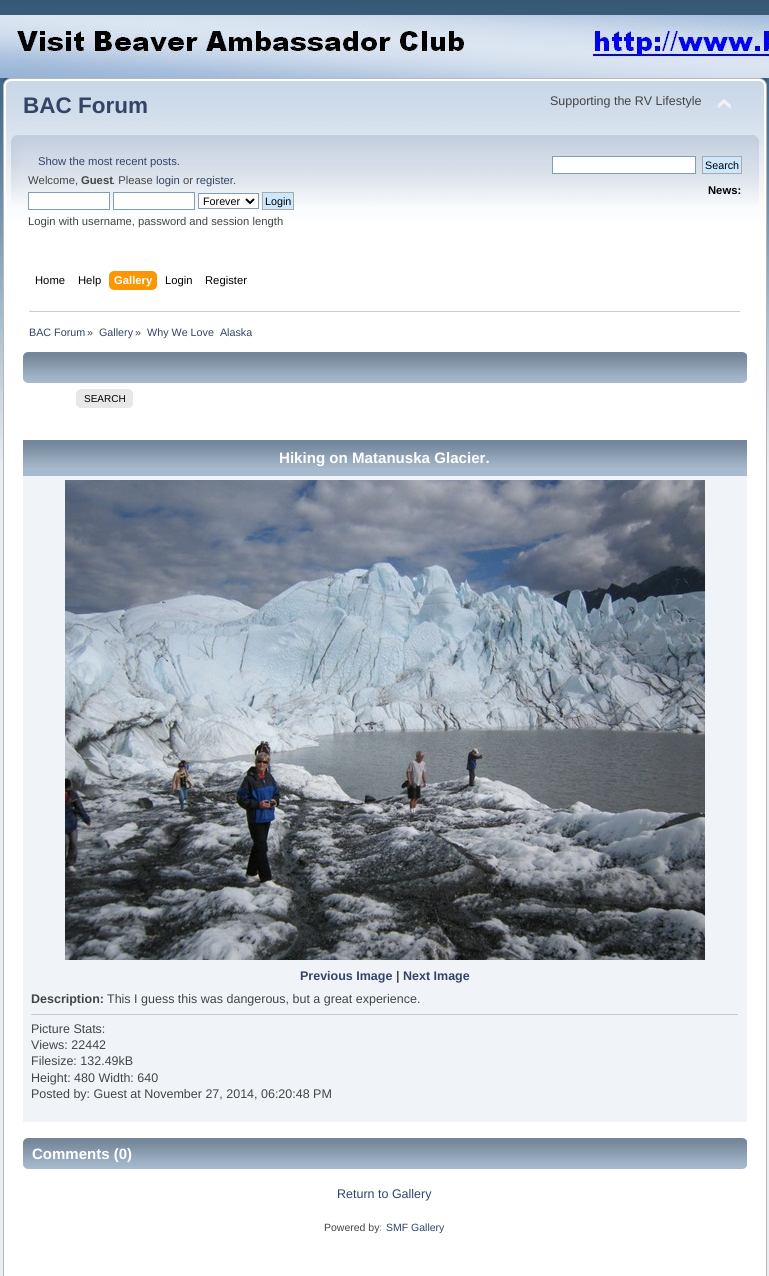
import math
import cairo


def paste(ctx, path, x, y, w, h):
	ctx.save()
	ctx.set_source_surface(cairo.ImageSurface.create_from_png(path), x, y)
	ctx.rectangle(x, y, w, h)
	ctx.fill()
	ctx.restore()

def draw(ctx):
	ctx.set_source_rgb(0.914, 0.933, 0.949)
	ctx.paint()
	paste(ctx, 'media/1.png', 0, 0, 769, 462)
	paste(ctx, 'media/2.png', 0, 15, 769, 63)
	paste(ctx, 'media/3.png', 3, 78, 751, 227)
	paste(ctx, 'media/4.png', 754, 78, 13, 227)
	ctx.select_font_face('Liberation Sans', cairo.FONT_SLANT_NORMAL, cairo.FONT_WEIGHT_BOLD)
	ctx.set_font_size(22.5)
	ctx.set_source_rgb(0.2, 0.267, 0.4)
	ctx.move_to(23, 113)
	ctx.show_text('BAC Forum')
	ctx.select_font_face('Liberation Sans')
	ctx.set_font_size(12.5)
	ctx.set_source_rgb(0.267, 0.267, 0.267)
	ctx.move_to(550, 105)
	ctx.show_text('Supporting the RV Lifestyle')
	paste(ctx, 'media/5.png', 717, 98, 15, 12)
	ctx.set_font_size(11.25)
	ctx.set_source_rgb(0.2, 0.267, 0.4)
	ctx.move_to(38, 165)
	ctx.show_text('Show the most recent posts.')
	ctx.set_source_rgb(0.267, 0.267, 0.267)
	ctx.move_to(28, 184)
	ctx.show_text('Welcome,')
	ctx.select_font_face('Liberation Sans', cairo.FONT_SLANT_NORMAL, cairo.FONT_WEIGHT_BOLD)
	ctx.move_to(81, 184)
	ctx.show_text('Guest')
	ctx.select_font_face('Liberation Sans')
	ctx.move_to(112, 184)
	ctx.show_text('. Please')
	ctx.set_source_rgb(0.2, 0.267, 0.4)
	ctx.move_to(156, 184)
	ctx.show_text('login')
	ctx.set_source_rgb(0.267, 0.267, 0.267)
	ctx.move_to(183, 184)
	ctx.show_text('or')
	ctx.set_source_rgb(0.2, 0.267, 0.4)
	ctx.move_to(196, 184)
	ctx.show_text('register')
	ctx.set_source_rgb(0.267, 0.267, 0.267)
	ctx.move_to(233, 184)
	ctx.show_text('.')
	ctx.set_source_rgb(1, 1, 1)
	ctx.rectangle(28.5, 192.5, 81, 17)
	ctx.fill_preserve()
	ctx.set_source_rgb(0.498, 0.616, 0.725)
	ctx.set_line_width(1)
	ctx.stroke()
	ctx.set_source_rgb(1, 1, 1)
	ctx.rectangle(113.5, 192.5, 81, 17)
	ctx.fill_preserve()
	ctx.set_source_rgb(0.498, 0.616, 0.725)
	ctx.stroke()
	ctx.set_source_rgb(1, 1, 1)
	ctx.rectangle(198.5, 193.5, 60, 15)
	ctx.fill_preserve()
	ctx.set_source_rgb(0.498, 0.616, 0.725)
	ctx.stroke()
	ctx.new_path()
	ctx.move_to(246, 199)
	ctx.line_to(250, 203)
	ctx.line_to(254, 199)
	ctx.set_source_rgb(0, 0, 0)
	ctx.set_line_width(2)
	ctx.stroke()
	ctx.set_font_size(10.75)
	ctx.move_to(203, 205)
	ctx.show_text('Forever')
	ctx.set_source_rgb(0.804, 0.906, 1)
	ctx.rectangle(262.5, 192.5, 31, 17)
	ctx.fill_preserve()
	ctx.set_source_rgb(0.667, 0.667, 0.667)
	ctx.set_line_width(1)
	ctx.stroke()
	ctx.set_source_rgb(0, 0, 0)
	ctx.move_to(265, 205)
	ctx.show_text('Login')
	ctx.set_font_size(11.25)
	ctx.set_source_rgb(0.267, 0.267, 0.267)
	ctx.move_to(28, 225)
	ctx.show_text('Login with username, password and session length')
	ctx.set_source_rgb(1, 1, 1)
	ctx.rectangle(552.5, 156.5, 143, 17)
	ctx.fill_preserve()
	ctx.set_source_rgb(0.498, 0.616, 0.725)
	ctx.stroke()
	ctx.set_source_rgb(0.804, 0.906, 1)
	ctx.rectangle(702.5, 156.5, 39, 17)
	ctx.fill_preserve()
	ctx.set_source_rgb(0.667, 0.667, 0.667)
	ctx.stroke()
	ctx.set_font_size(10.75)
	ctx.set_source_rgb(0, 0, 0)
	ctx.move_to(705, 169)
	ctx.show_text('Search')
	ctx.select_font_face('Liberation Sans', cairo.FONT_SLANT_NORMAL, cairo.FONT_WEIGHT_BOLD)
	ctx.set_font_size(11.25)
	ctx.move_to(708, 194)
	ctx.show_text('News:')
	ctx.select_font_face('Liberation Sans')
	ctx.move_to(35, 284)
	ctx.show_text('Home')
	ctx.move_to(78, 284)
	ctx.show_text('Help')
	paste(ctx, 'media/6.png', 114, 271, 43, 19)
	paste(ctx, 'media/7.png', 109, 271, 5, 19)
	ctx.select_font_face('Liberation Sans', cairo.FONT_SLANT_NORMAL, cairo.FONT_WEIGHT_BOLD)
	ctx.set_source_rgb(1, 1, 1)
	ctx.move_to(114, 284)
	ctx.show_text('Gallery')
	ctx.select_font_face('Liberation Sans')
	ctx.set_source_rgb(0, 0, 0)
	ctx.move_to(165, 284)
	ctx.show_text('Login')
	ctx.move_to(205, 284)
	ctx.show_text('Register')
	ctx.set_source_rgb(1, 1, 1)
	ctx.rectangle(4, 305, 762, 971)
	ctx.fill()
	ctx.set_source_rgb(0.718, 0.718, 0.718)
	ctx.rectangle(3, 305, 1, 971)
	ctx.rectangle(766, 305, 1, 971)
	ctx.fill()
	ctx.set_source_rgb(0.8, 0.8, 0.8)
	ctx.rectangle(29, 311, 711, 1)
	ctx.fill()
	ctx.set_font_size(10.75)
	ctx.set_source_rgb(0.2, 0.267, 0.4)
	ctx.move_to(29, 336)
	ctx.show_text('BAC Forum')
	ctx.set_source_rgb(0.267, 0.267, 0.267)
	ctx.move_to(87, 336)
	ctx.show_text('»')
	ctx.set_source_rgb(0.2, 0.267, 0.4)
	ctx.move_to(99, 336)
	ctx.show_text('Gallery')
	ctx.set_source_rgb(0.267, 0.267, 0.267)
	ctx.move_to(135, 336)
	ctx.show_text('»')
	ctx.set_source_rgb(0.2, 0.267, 0.4)
	ctx.move_to(147, 336)
	ctx.show_text('Why We Love  Alaska')
	paste(ctx, 'media/8.png', 23, 352, 719, 31)
	paste(ctx, 'media/9.png', 742, 352, 5, 31)
	ctx.set_source_rgb(0.91, 0.91, 0.91)
	ctx.rectangle(80, 389, 49, 19)
	ctx.fill()
	paste(ctx, 'media/10.png', 76, 389, 4, 19)
	paste(ctx, 'media/11.png', 129, 389, 4, 19)
	ctx.set_font_size(10)
	ctx.set_source_rgb(0, 0, 0)
	ctx.move_to(84, 402)
	ctx.show_text('SEARCH')
	ctx.set_source_rgb(0.655, 0.725, 0.804)
	ctx.rectangle(23, 468, 724, 8)
	ctx.fill()
	paste(ctx, 'media/12.png', 23, 440, 724, 28)
	ctx.select_font_face('Liberation Sans', cairo.FONT_SLANT_NORMAL, cairo.FONT_WEIGHT_BOLD)
	ctx.set_font_size(15.1)
	ctx.set_source_rgb(1, 1, 1)
	ctx.move_to(279, 463)
	ctx.show_text('Hiking on Matanuska Glacier.')
	ctx.set_source_rgb(0.941, 0.957, 0.969)
	ctx.rectangle(23, 476, 724, 646)
	ctx.fill()
	paste(ctx, 'media/13.png', 65, 480, 640, 480)
	ctx.set_font_size(12.5)
	ctx.set_source_rgb(0.2, 0.267, 0.4)
	ctx.move_to(300, 980)
	ctx.show_text('Previous Image')
	ctx.set_source_rgb(0.267, 0.267, 0.267)
	ctx.move_to(396, 980)
	ctx.show_text('|')
	ctx.set_source_rgb(0.2, 0.267, 0.4)
	ctx.move_to(403, 980)
	ctx.show_text('Next Image')
	ctx.set_source_rgb(0.267, 0.267, 0.267)
	ctx.move_to(31, 1003)
	ctx.show_text('Description:')
	ctx.select_font_face('Liberation Sans')
	ctx.move_to(107, 1003)
	ctx.show_text('This I guess this was dangerous, but a great experience.')
	ctx.set_source_rgb(0.8, 0.8, 0.8)
	ctx.rectangle(31, 1014, 707, 1)
	ctx.fill()
	ctx.set_source_rgb(0.267, 0.267, 0.267)
	for x, y, s in [
		(31, 1033, 'Picture Stats:'),
		(31, 1049, 'Views: 22442'),
		(31, 1065, 'Filesize: 132.49kB'),
		(31, 1082, 'Height: 480 Width: 640'),
		(31, 1098, 'Posted by: Guest at November 27, 2014, 06:20:48 PM'),
	]:
		ctx.move_to(x, y)
		ctx.show_text(s)
	paste(ctx, 'media/8.png', 23, 1138, 719, 31)
	paste(ctx, 'media/9.png', 742, 1138, 5, 31)
	ctx.select_font_face('Liberation Sans', cairo.FONT_SLANT_NORMAL, cairo.FONT_WEIGHT_BOLD)
	ctx.set_font_size(15)
	ctx.set_source_rgb(1, 1, 1)
	ctx.move_to(32, 1159)
	ctx.show_text('Comments (0)')
	ctx.select_font_face('Liberation Sans')
	ctx.set_font_size(12.5)
	ctx.set_source_rgb(0.2, 0.267, 0.4)
	ctx.move_to(337, 1198)
	ctx.show_text('Return to Gallery')
	ctx.set_font_size(10.5)
	ctx.set_source_rgb(0.267, 0.267, 0.267)
	ctx.move_to(324, 1231)
	ctx.show_text('Powered by:')
	ctx.set_source_rgb(0.2, 0.267, 0.4)
	ctx.move_to(386, 1231)
	ctx.show_text('SMF Gallery')


surface = cairo.ImageSurface(cairo.FORMAT_RGB24, 769, 1276)
ctx = cairo.Context(surface)
options = cairo.FontOptions()
options.set_hint_metrics(cairo.HINT_METRICS_OFF)
options.set_hint_style(cairo.HINT_STYLE_NONE)
ctx.set_font_options(options)
ctx.set_miter_limit(4)
draw(ctx)
surface.write_to_png('image.png')
